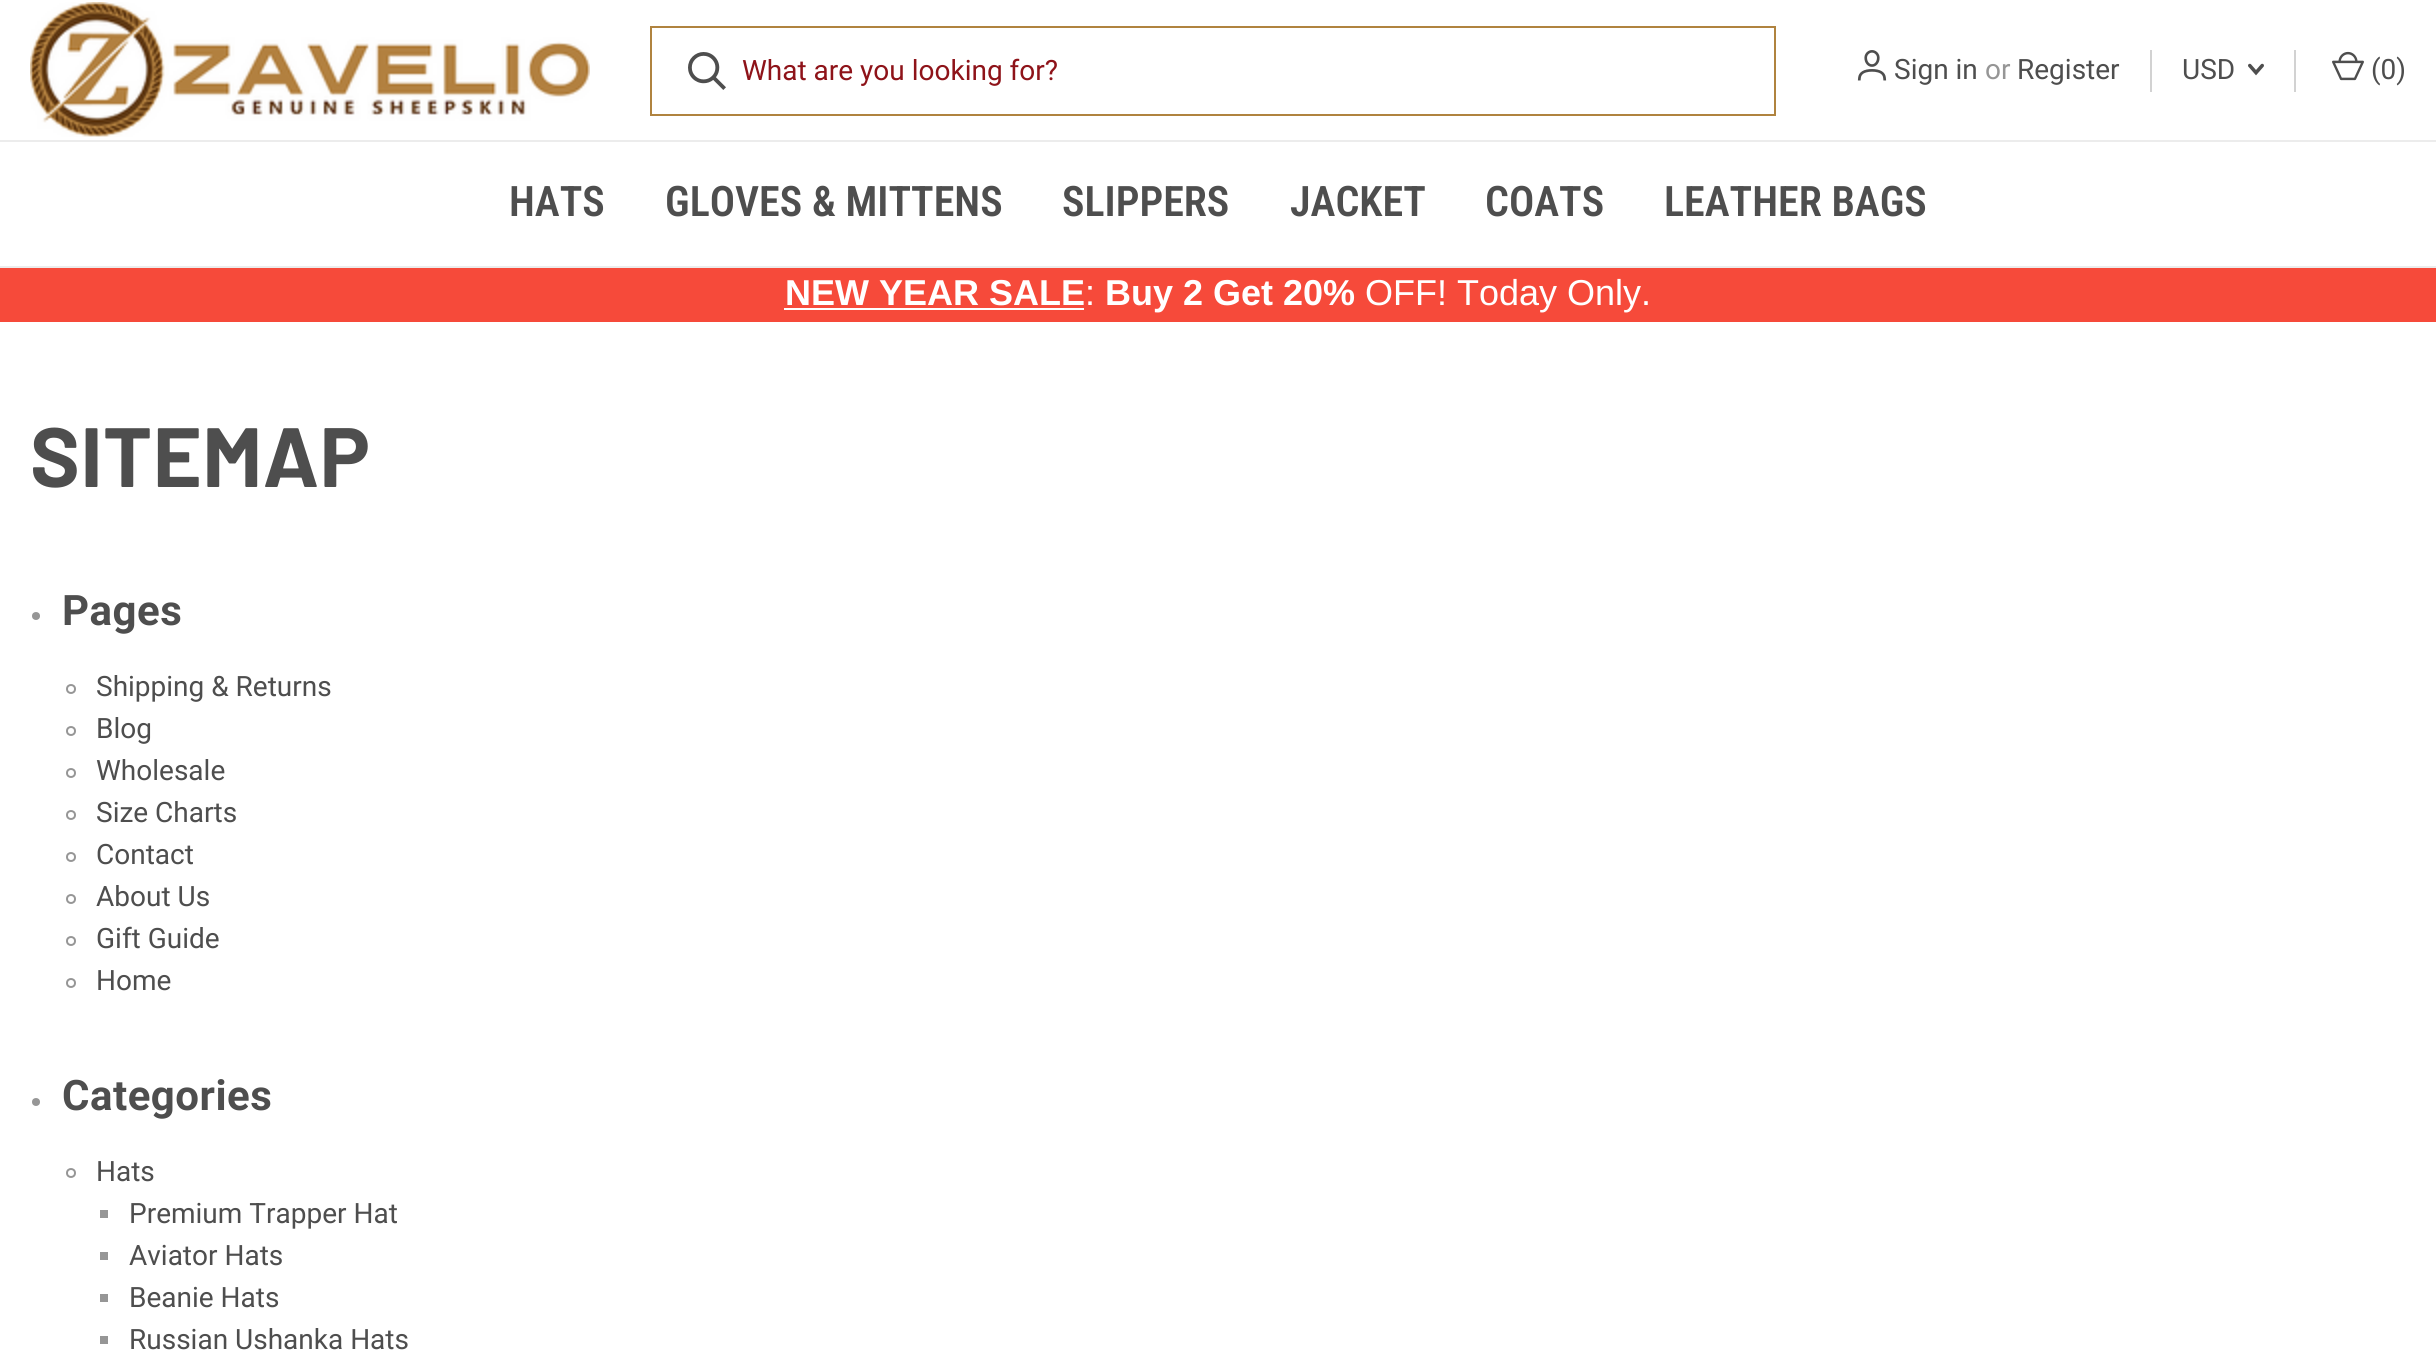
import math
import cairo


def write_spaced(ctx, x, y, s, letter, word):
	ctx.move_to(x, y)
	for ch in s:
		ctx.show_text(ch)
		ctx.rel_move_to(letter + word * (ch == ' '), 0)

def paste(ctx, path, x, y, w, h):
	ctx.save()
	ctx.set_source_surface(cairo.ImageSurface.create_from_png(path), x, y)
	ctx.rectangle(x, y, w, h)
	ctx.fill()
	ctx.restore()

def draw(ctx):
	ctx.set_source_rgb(1, 1, 1)
	ctx.paint()
	paste(ctx, 'media/1.png', 30, 2, 560, 135)
	ctx.rectangle(651, 27, 1124, 88)
	ctx.set_source_rgb(0.69, 0.514, 0.247)
	ctx.stroke()
	paste(ctx, 'media/2.png', 688, 52, 38, 38)
	ctx.select_font_face('Roboto')
	ctx.set_font_size(28)
	ctx.set_source_rgb(0.557, 0.078, 0.098)
	ctx.move_to(742, 80)
	ctx.show_text('What are you looking for?')
	paste(ctx, 'media/3.png', 1857, 50, 30, 31)
	ctx.set_source_rgb(0.306, 0.306, 0.306)
	ctx.move_to(1894, 79)
	ctx.show_text('Sign in')
	ctx.set_source_rgb(0.588, 0.588, 0.588)
	ctx.move_to(1985, 79)
	ctx.show_text('or')
	ctx.set_source_rgb(0.306, 0.306, 0.306)
	ctx.move_to(2017, 79)
	ctx.show_text('Register')
	ctx.set_source_rgb(0.824, 0.824, 0.824)
	ctx.rectangle(2150, 50, 2, 42)
	ctx.fill()
	ctx.set_source_rgb(0.306, 0.306, 0.306)
	ctx.move_to(2182, 79)
	ctx.show_text('USD')
	paste(ctx, 'media/4.png', 2248, 63, 16, 13)
	ctx.set_source_rgb(0.824, 0.824, 0.824)
	ctx.rectangle(2294, 50, 2, 42)
	ctx.fill()
	paste(ctx, 'media/5.png', 2332, 51, 32, 30)
	ctx.set_source_rgb(0.306, 0.306, 0.306)
	ctx.move_to(2371, 79)
	ctx.show_text('(0)')
	ctx.set_source_rgb(0.922, 0.922, 0.922)
	ctx.rectangle(0, 140, 2436, 2)
	ctx.fill()
	ctx.rectangle(0, 266, 2436, 2)
	ctx.fill()
	ctx.select_font_face('Roboto Condensed SemiBold')
	ctx.set_font_size(42)
	ctx.set_source_rgb(0.306, 0.306, 0.306)
	for x, y, s in [
		(509, 216, 'HATS'),
		(665, 216, 'GLOVES & MITTENS'),
		(1062, 216, 'SLIPPERS'),
		(1290, 216, 'JACKET'),
		(1485, 216, 'COATS'),
		(1664, 216, 'LEATHER BAGS'),
	]:
		ctx.move_to(x, y)
		ctx.show_text(s)
	ctx.set_source_rgb(0.961, 0.29, 0.227)
	ctx.rectangle(0, 268, 2436, 54)
	ctx.fill()
	ctx.select_font_face('Liberation Sans', cairo.FONT_SLANT_NORMAL, cairo.FONT_WEIGHT_BOLD)
	ctx.set_font_size(36)
	ctx.set_source_rgb(1, 1, 1)
	ctx.move_to(785, 305)
	ctx.show_text('NEW YEAR SALE')
	ctx.rectangle(784, 308, 300, 2)
	ctx.fill()
	ctx.select_font_face('Liberation Sans')
	ctx.move_to(1085, 305)
	ctx.show_text(':')
	ctx.select_font_face('Liberation Sans', cairo.FONT_SLANT_NORMAL, cairo.FONT_WEIGHT_BOLD)
	ctx.move_to(1105, 305)
	ctx.show_text('Buy 2 Get 20%')
	ctx.select_font_face('Liberation Sans')
	ctx.move_to(1365, 305)
	ctx.show_text('OFF! Today Only.')
	ctx.select_font_face('Barlow', cairo.FONT_SLANT_NORMAL, cairo.FONT_WEIGHT_BOLD)
	ctx.set_font_size(84)
	ctx.set_source_rgb(0.306, 0.306, 0.306)
	write_spaced(ctx, 30, 487, 'SITEMAP', 0.5, 0)
	ctx.set_source_rgb(0.588, 0.588, 0.588)
	ctx.new_path()
	ctx.arc(36, 616, 4, 0, 2 * math.pi)
	ctx.fill()
	ctx.select_font_face('Roboto', cairo.FONT_SLANT_NORMAL, cairo.FONT_WEIGHT_BOLD)
	ctx.set_font_size(42)
	ctx.set_source_rgb(0.306, 0.306, 0.306)
	write_spaced(ctx, 62, 625, 'Pages', 0.5, 0)
	ctx.new_path()
	ctx.arc(71, 689, 4, 0, 2 * math.pi)
	ctx.set_source_rgb(0.588, 0.588, 0.588)
	ctx.stroke()
	ctx.select_font_face('Roboto')
	ctx.set_font_size(28)
	ctx.set_source_rgb(0.306, 0.306, 0.306)
	ctx.move_to(96, 696)
	ctx.show_text('Shipping & Returns')
	ctx.new_path()
	ctx.arc(71, 731, 4, 0, 2 * math.pi)
	ctx.set_source_rgb(0.588, 0.588, 0.588)
	ctx.stroke()
	ctx.set_source_rgb(0.306, 0.306, 0.306)
	ctx.move_to(96, 738)
	ctx.show_text('Blog')
	ctx.new_path()
	ctx.arc(71, 773, 4, 0, 2 * math.pi)
	ctx.set_source_rgb(0.588, 0.588, 0.588)
	ctx.stroke()
	ctx.set_source_rgb(0.306, 0.306, 0.306)
	ctx.move_to(96, 780)
	ctx.show_text('Wholesale')
	ctx.new_path()
	ctx.arc(71, 815, 4, 0, 2 * math.pi)
	ctx.set_source_rgb(0.588, 0.588, 0.588)
	ctx.stroke()
	ctx.set_source_rgb(0.306, 0.306, 0.306)
	ctx.move_to(96, 822)
	ctx.show_text('Size Charts')
	ctx.new_path()
	ctx.arc(71, 857, 4, 0, 2 * math.pi)
	ctx.set_source_rgb(0.588, 0.588, 0.588)
	ctx.stroke()
	ctx.set_source_rgb(0.306, 0.306, 0.306)
	ctx.move_to(96, 864)
	ctx.show_text('Contact')
	ctx.new_path()
	ctx.arc(71, 899, 4, 0, 2 * math.pi)
	ctx.set_source_rgb(0.588, 0.588, 0.588)
	ctx.stroke()
	ctx.set_source_rgb(0.306, 0.306, 0.306)
	ctx.move_to(96, 906)
	ctx.show_text('About Us')
	ctx.new_path()
	ctx.arc(71, 941, 4, 0, 2 * math.pi)
	ctx.set_source_rgb(0.588, 0.588, 0.588)
	ctx.stroke()
	ctx.set_source_rgb(0.306, 0.306, 0.306)
	ctx.move_to(96, 948)
	ctx.show_text('Gift Guide')
	ctx.new_path()
	ctx.arc(71, 983, 4, 0, 2 * math.pi)
	ctx.set_source_rgb(0.588, 0.588, 0.588)
	ctx.stroke()
	ctx.set_source_rgb(0.306, 0.306, 0.306)
	ctx.move_to(96, 990)
	ctx.show_text('Home')
	ctx.set_source_rgb(0.588, 0.588, 0.588)
	ctx.new_path()
	ctx.arc(36, 1102, 4, 0, 2 * math.pi)
	ctx.fill()
	ctx.select_font_face('Roboto', cairo.FONT_SLANT_NORMAL, cairo.FONT_WEIGHT_BOLD)
	ctx.set_font_size(42)
	ctx.set_source_rgb(0.306, 0.306, 0.306)
	write_spaced(ctx, 62, 1110, 'Categories', 0.5, 0)
	ctx.new_path()
	ctx.arc(71, 1173, 4, 0, 2 * math.pi)
	ctx.set_source_rgb(0.588, 0.588, 0.588)
	ctx.stroke()
	ctx.select_font_face('Roboto')
	ctx.set_font_size(28)
	ctx.set_source_rgb(0.306, 0.306, 0.306)
	ctx.move_to(96, 1181)
	ctx.show_text('Hats')
	ctx.set_source_rgb(0.588, 0.588, 0.588)
	ctx.rectangle(100, 1210, 8, 8)
	ctx.fill()
	ctx.set_source_rgb(0.306, 0.306, 0.306)
	ctx.move_to(129, 1223)
	ctx.show_text('Premium Trapper Hat')
	ctx.set_source_rgb(0.588, 0.588, 0.588)
	ctx.rectangle(100, 1252, 8, 8)
	ctx.fill()
	ctx.set_source_rgb(0.306, 0.306, 0.306)
	ctx.move_to(129, 1265)
	ctx.show_text('Aviator Hats')
	ctx.set_source_rgb(0.588, 0.588, 0.588)
	ctx.rectangle(100, 1294, 8, 8)
	ctx.fill()
	ctx.set_source_rgb(0.306, 0.306, 0.306)
	ctx.move_to(129, 1307)
	ctx.show_text('Beanie Hats')
	ctx.set_source_rgb(0.588, 0.588, 0.588)
	ctx.rectangle(100, 1336, 8, 8)
	ctx.fill()
	ctx.set_source_rgb(0.306, 0.306, 0.306)
	ctx.move_to(129, 1349)
	ctx.show_text('Russian Ushanka Hats')


surface = cairo.ImageSurface(cairo.FORMAT_RGB24, 2436, 1359)
ctx = cairo.Context(surface)
options = cairo.FontOptions()
options.set_hint_metrics(cairo.HINT_METRICS_OFF)
options.set_hint_style(cairo.HINT_STYLE_NONE)
ctx.set_font_options(options)
ctx.set_miter_limit(4)
draw(ctx)
surface.write_to_png('image.png')
